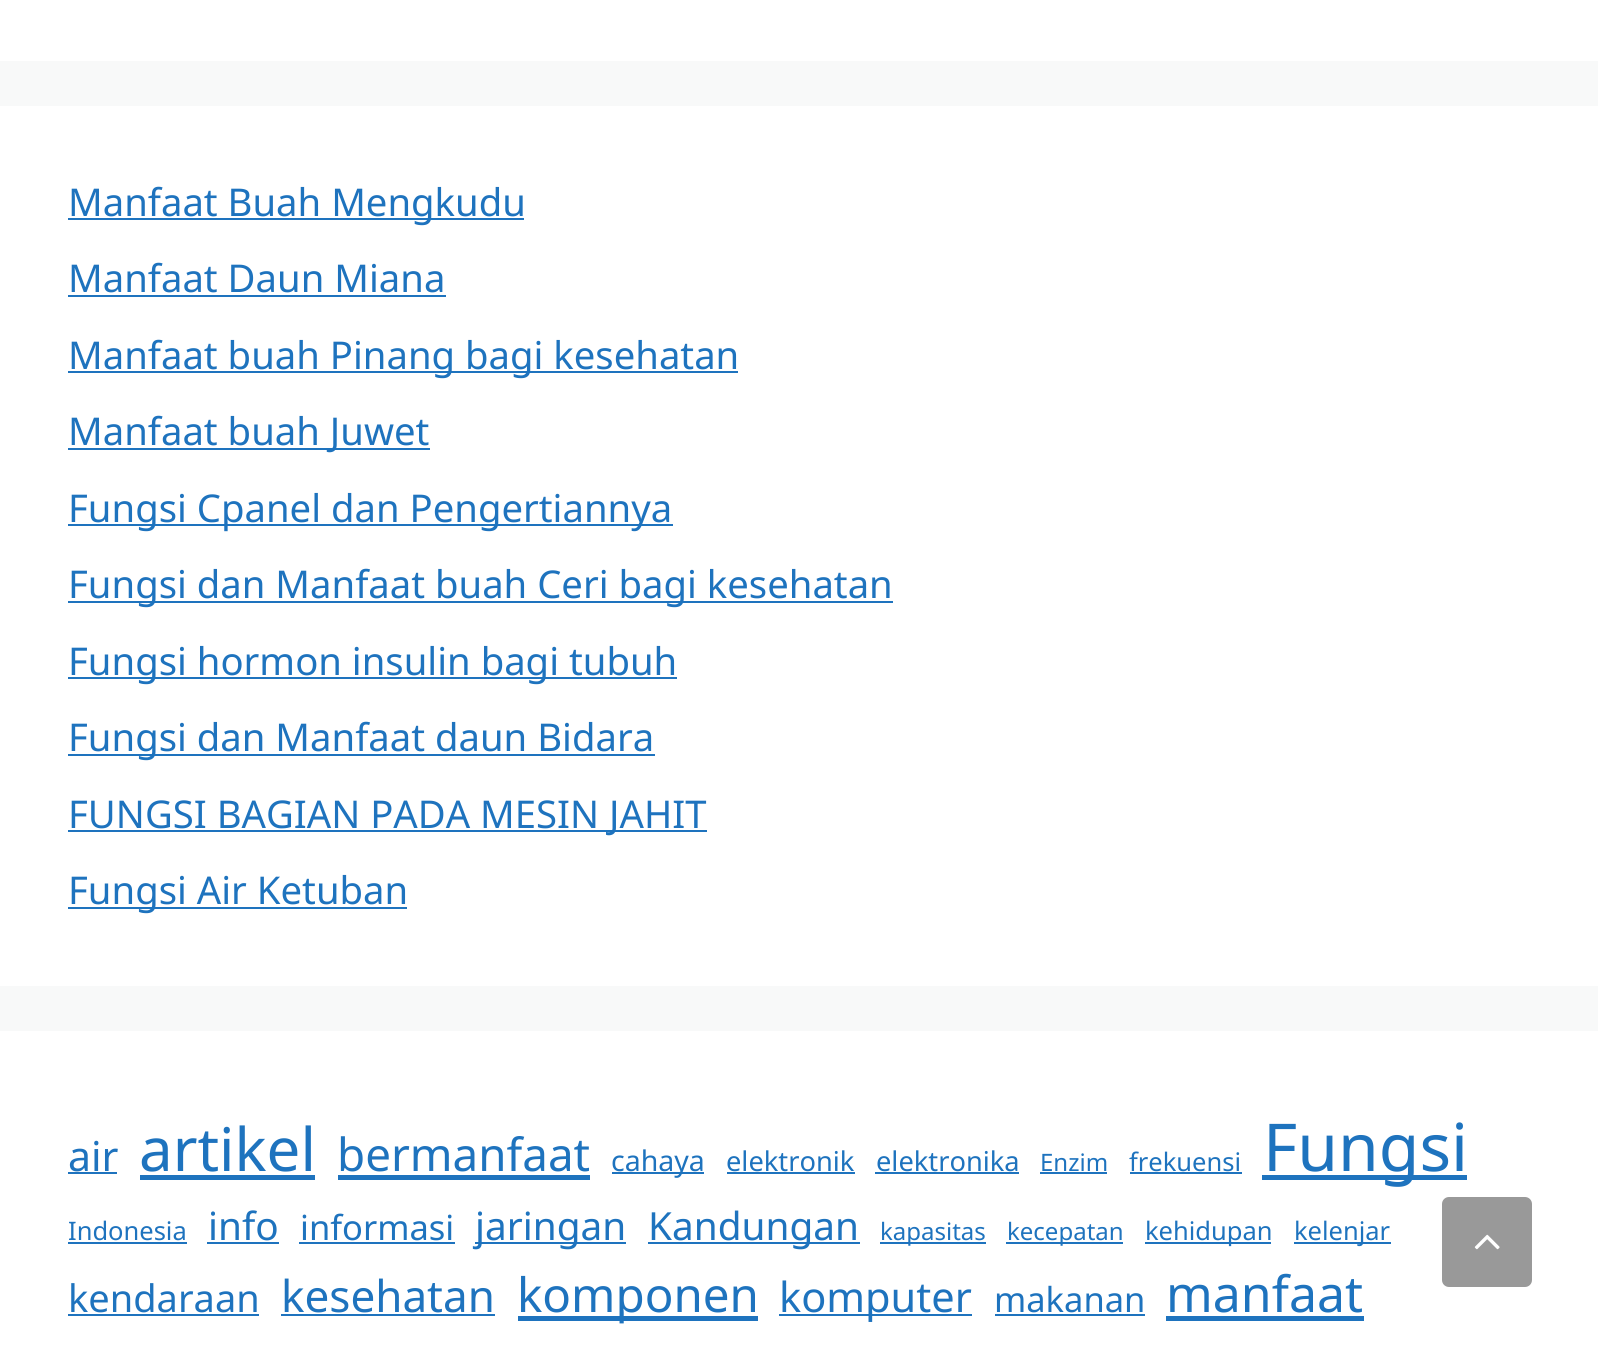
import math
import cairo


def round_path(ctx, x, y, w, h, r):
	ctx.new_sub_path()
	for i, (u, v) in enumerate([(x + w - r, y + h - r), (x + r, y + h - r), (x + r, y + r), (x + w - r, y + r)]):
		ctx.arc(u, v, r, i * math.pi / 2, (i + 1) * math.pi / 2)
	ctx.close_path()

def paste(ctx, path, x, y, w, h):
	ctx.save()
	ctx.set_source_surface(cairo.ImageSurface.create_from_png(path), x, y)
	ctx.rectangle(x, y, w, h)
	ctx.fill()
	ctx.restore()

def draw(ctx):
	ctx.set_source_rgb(0.969, 0.973, 0.976)
	ctx.paint()
	ctx.set_source_rgb(1, 1, 1)
	ctx.rectangle(0, 0, 1598, 61)
	ctx.rectangle(0, 106, 1598, 880)
	ctx.fill()
	ctx.set_source_rgb(0.118, 0.451, 0.745)
	ctx.rectangle(68, 218, 456, 2)
	ctx.fill()
	ctx.select_font_face('Noto Sans')
	ctx.set_font_size(38.25)
	ctx.move_to(68, 216)
	ctx.show_text('Manfaat Buah Mengkudu')
	ctx.move_to(68, 292)
	ctx.show_text('Manfaat Daun Miana')
	ctx.rectangle(68, 295, 378, 2)
	ctx.fill()
	ctx.rectangle(68, 371, 670, 2)
	ctx.fill()
	ctx.move_to(68, 369)
	ctx.show_text('Manfaat buah Pinang bagi kesehatan')
	ctx.rectangle(68, 448, 362, 2)
	ctx.fill()
	ctx.move_to(68, 445)
	ctx.show_text('Manfaat buah Juwet')
	ctx.rectangle(68, 524, 605, 2)
	ctx.fill()
	ctx.move_to(68, 522)
	ctx.show_text('Fungsi Cpanel dan Pengertiannya')
	ctx.rectangle(68, 601, 825, 2)
	ctx.fill()
	ctx.move_to(68, 598)
	ctx.show_text('Fungsi dan Manfaat buah Ceri bagi kesehatan')
	ctx.rectangle(68, 677, 609, 2)
	ctx.fill()
	ctx.move_to(68, 675)
	ctx.show_text('Fungsi hormon insulin bagi tubuh')
	ctx.rectangle(68, 754, 587, 2)
	ctx.fill()
	ctx.move_to(68, 751)
	ctx.show_text('Fungsi dan Manfaat daun Bidara')
	ctx.rectangle(68, 830, 639, 2)
	ctx.fill()
	ctx.move_to(68, 828)
	ctx.show_text('FUNGSI BAGIAN PADA MESIN JAHIT')
	ctx.rectangle(68, 907, 339, 2)
	ctx.fill()
	ctx.move_to(68, 904)
	ctx.show_text('Fungsi Air Ketuban')
	ctx.set_source_rgb(1, 1, 1)
	ctx.rectangle(0, 1031, 1598, 322)
	ctx.fill()
	ctx.set_font_size(41)
	ctx.set_source_rgb(0.118, 0.451, 0.745)
	ctx.move_to(68, 1171)
	ctx.show_text('air')
	ctx.rectangle(68, 1172, 49, 2)
	ctx.fill()
	ctx.set_font_size(60)
	ctx.move_to(139, 1171)
	ctx.show_text('artikel')
	ctx.rectangle(140, 1175, 175, 5)
	ctx.fill()
	ctx.set_font_size(45.75)
	ctx.move_to(337, 1171)
	ctx.show_text('bermanfaat')
	ctx.rectangle(338, 1175, 252, 5)
	ctx.fill()
	ctx.rectangle(612, 1172, 92, 2)
	ctx.fill()
	ctx.set_font_size(28.5)
	ctx.move_to(611, 1171)
	ctx.show_text('cahaya')
	ctx.set_font_size(27.25)
	ctx.move_to(726, 1171)
	ctx.show_text('elektronik')
	ctx.rectangle(727, 1172, 128, 2)
	ctx.fill()
	ctx.move_to(876, 1171)
	ctx.show_text('elektronika')
	ctx.rectangle(875, 1172, 144, 2)
	ctx.fill()
	ctx.set_font_size(24)
	ctx.move_to(1040, 1171)
	ctx.show_text('Enzim')
	ctx.rectangle(1040, 1172, 67, 2)
	ctx.fill()
	ctx.set_font_size(25.5)
	ctx.move_to(1129, 1171)
	ctx.show_text('frekuensi')
	ctx.rectangle(1130, 1172, 112, 2)
	ctx.fill()
	ctx.rectangle(1262, 1175, 205, 5)
	ctx.fill()
	ctx.set_font_size(66)
	ctx.move_to(1263, 1171)
	ctx.show_text('Fungsi')
	ctx.set_font_size(25.5)
	ctx.move_to(68, 1240)
	ctx.show_text('Indonesia')
	ctx.rectangle(68, 1242, 119, 2)
	ctx.fill()
	ctx.set_font_size(38.75)
	ctx.move_to(208, 1240)
	ctx.show_text('info')
	ctx.rectangle(207, 1242, 72, 2)
	ctx.fill()
	ctx.set_font_size(34.5)
	ctx.move_to(300, 1240)
	ctx.show_text('informasi')
	ctx.rectangle(299, 1242, 156, 2)
	ctx.fill()
	ctx.rectangle(475, 1242, 151, 2)
	ctx.fill()
	ctx.set_font_size(38.75)
	ctx.move_to(475, 1240)
	ctx.show_text('jaringan')
	ctx.rectangle(648, 1242, 212, 2)
	ctx.fill()
	ctx.move_to(648, 1240)
	ctx.show_text('Kandungan')
	ctx.rectangle(880, 1242, 106, 2)
	ctx.fill()
	ctx.set_font_size(24)
	ctx.move_to(880, 1240)
	ctx.show_text('kapasitas')
	ctx.rectangle(1006, 1242, 117, 2)
	ctx.fill()
	ctx.move_to(1007, 1240)
	ctx.show_text('kecepatan')
	ctx.rectangle(1145, 1242, 126, 2)
	ctx.fill()
	ctx.set_font_size(25.5)
	ctx.move_to(1145, 1240)
	ctx.show_text('kehidupan')
	ctx.rectangle(1294, 1242, 97, 2)
	ctx.fill()
	ctx.move_to(1294, 1240)
	ctx.show_text('kelenjar')
	ctx.set_font_size(38)
	ctx.move_to(68, 1312)
	ctx.show_text('kendaraan')
	ctx.rectangle(68, 1314, 191, 2)
	ctx.fill()
	ctx.set_font_size(44)
	ctx.move_to(281, 1312)
	ctx.show_text('kesehatan')
	ctx.rectangle(281, 1314, 214, 2)
	ctx.fill()
	ctx.rectangle(518, 1316, 240, 5)
	ctx.fill()
	ctx.set_font_size(47.5)
	ctx.move_to(517, 1312)
	ctx.show_text('komponen')
	ctx.rectangle(779, 1314, 193, 2)
	ctx.fill()
	ctx.set_font_size(41.5)
	ctx.move_to(779, 1312)
	ctx.show_text('komputer')
	ctx.set_font_size(34.5)
	ctx.move_to(994, 1312)
	ctx.show_text('makanan')
	ctx.rectangle(995, 1314, 150, 2)
	ctx.fill()
	ctx.set_font_size(50)
	ctx.move_to(1166, 1312)
	ctx.show_text('manfaat')
	ctx.rectangle(1166, 1316, 198, 5)
	ctx.fill()
	ctx.set_source_rgb(0.6, 0.6, 0.6)
	round_path(ctx, 1442, 1197, 90, 90, 7)
	ctx.fill()
	paste(ctx, 'media/1.png', 1474, 1234, 26, 16)


surface = cairo.ImageSurface(cairo.FORMAT_RGB24, 1598, 1353)
ctx = cairo.Context(surface)
options = cairo.FontOptions()
options.set_hint_metrics(cairo.HINT_METRICS_OFF)
options.set_hint_style(cairo.HINT_STYLE_NONE)
ctx.set_font_options(options)
ctx.set_miter_limit(4)
draw(ctx)
surface.write_to_png('image.png')
